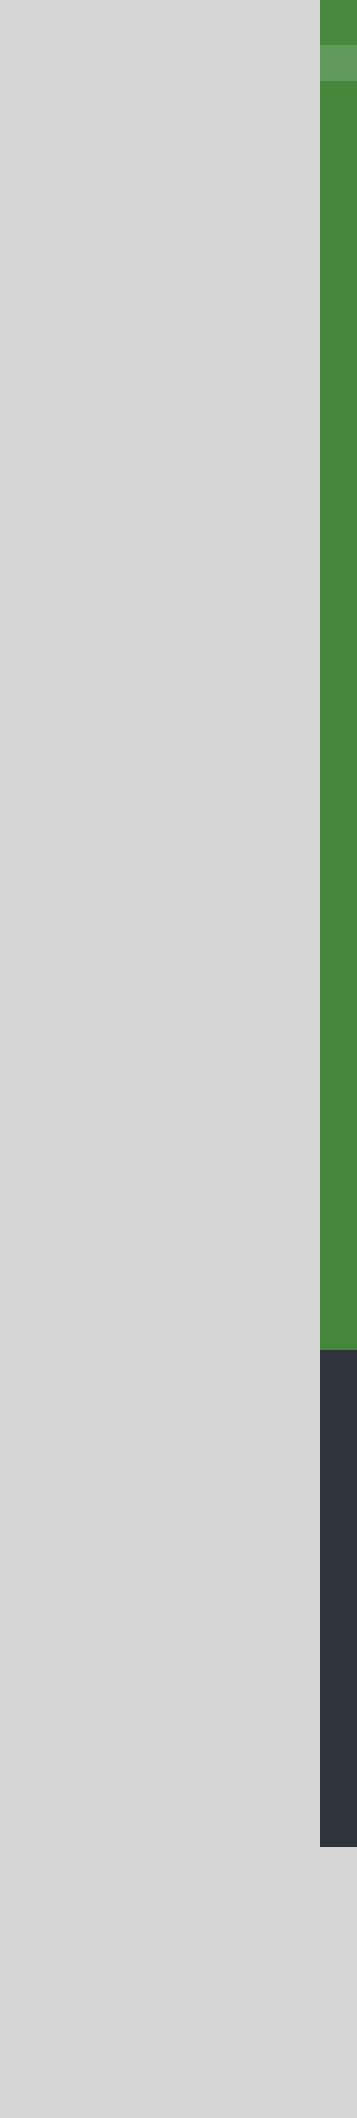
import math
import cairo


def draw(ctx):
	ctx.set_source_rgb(0.831, 0.831, 0.831)
	ctx.paint()
	ctx.set_source_rgb(0.271, 0.529, 0.231)
	ctx.rectangle(320, 81, 37, 1269)
	ctx.fill()
	ctx.set_source_rgb(0.282, 0.533, 0.243)
	ctx.rectangle(320, 0, 37, 45)
	ctx.fill()
	ctx.set_source_rgb(0.384, 0.596, 0.361)
	ctx.rectangle(320, 45, 37, 36)
	ctx.fill()
	ctx.set_source_rgb(0.18, 0.204, 0.231)
	ctx.rectangle(320, 1350, 37, 497)
	ctx.fill()


surface = cairo.ImageSurface(cairo.FORMAT_RGB24, 357, 2118)
ctx = cairo.Context(surface)
options = cairo.FontOptions()
options.set_hint_metrics(cairo.HINT_METRICS_OFF)
options.set_hint_style(cairo.HINT_STYLE_NONE)
ctx.set_font_options(options)
ctx.set_miter_limit(4)
draw(ctx)
surface.write_to_png('image.png')
